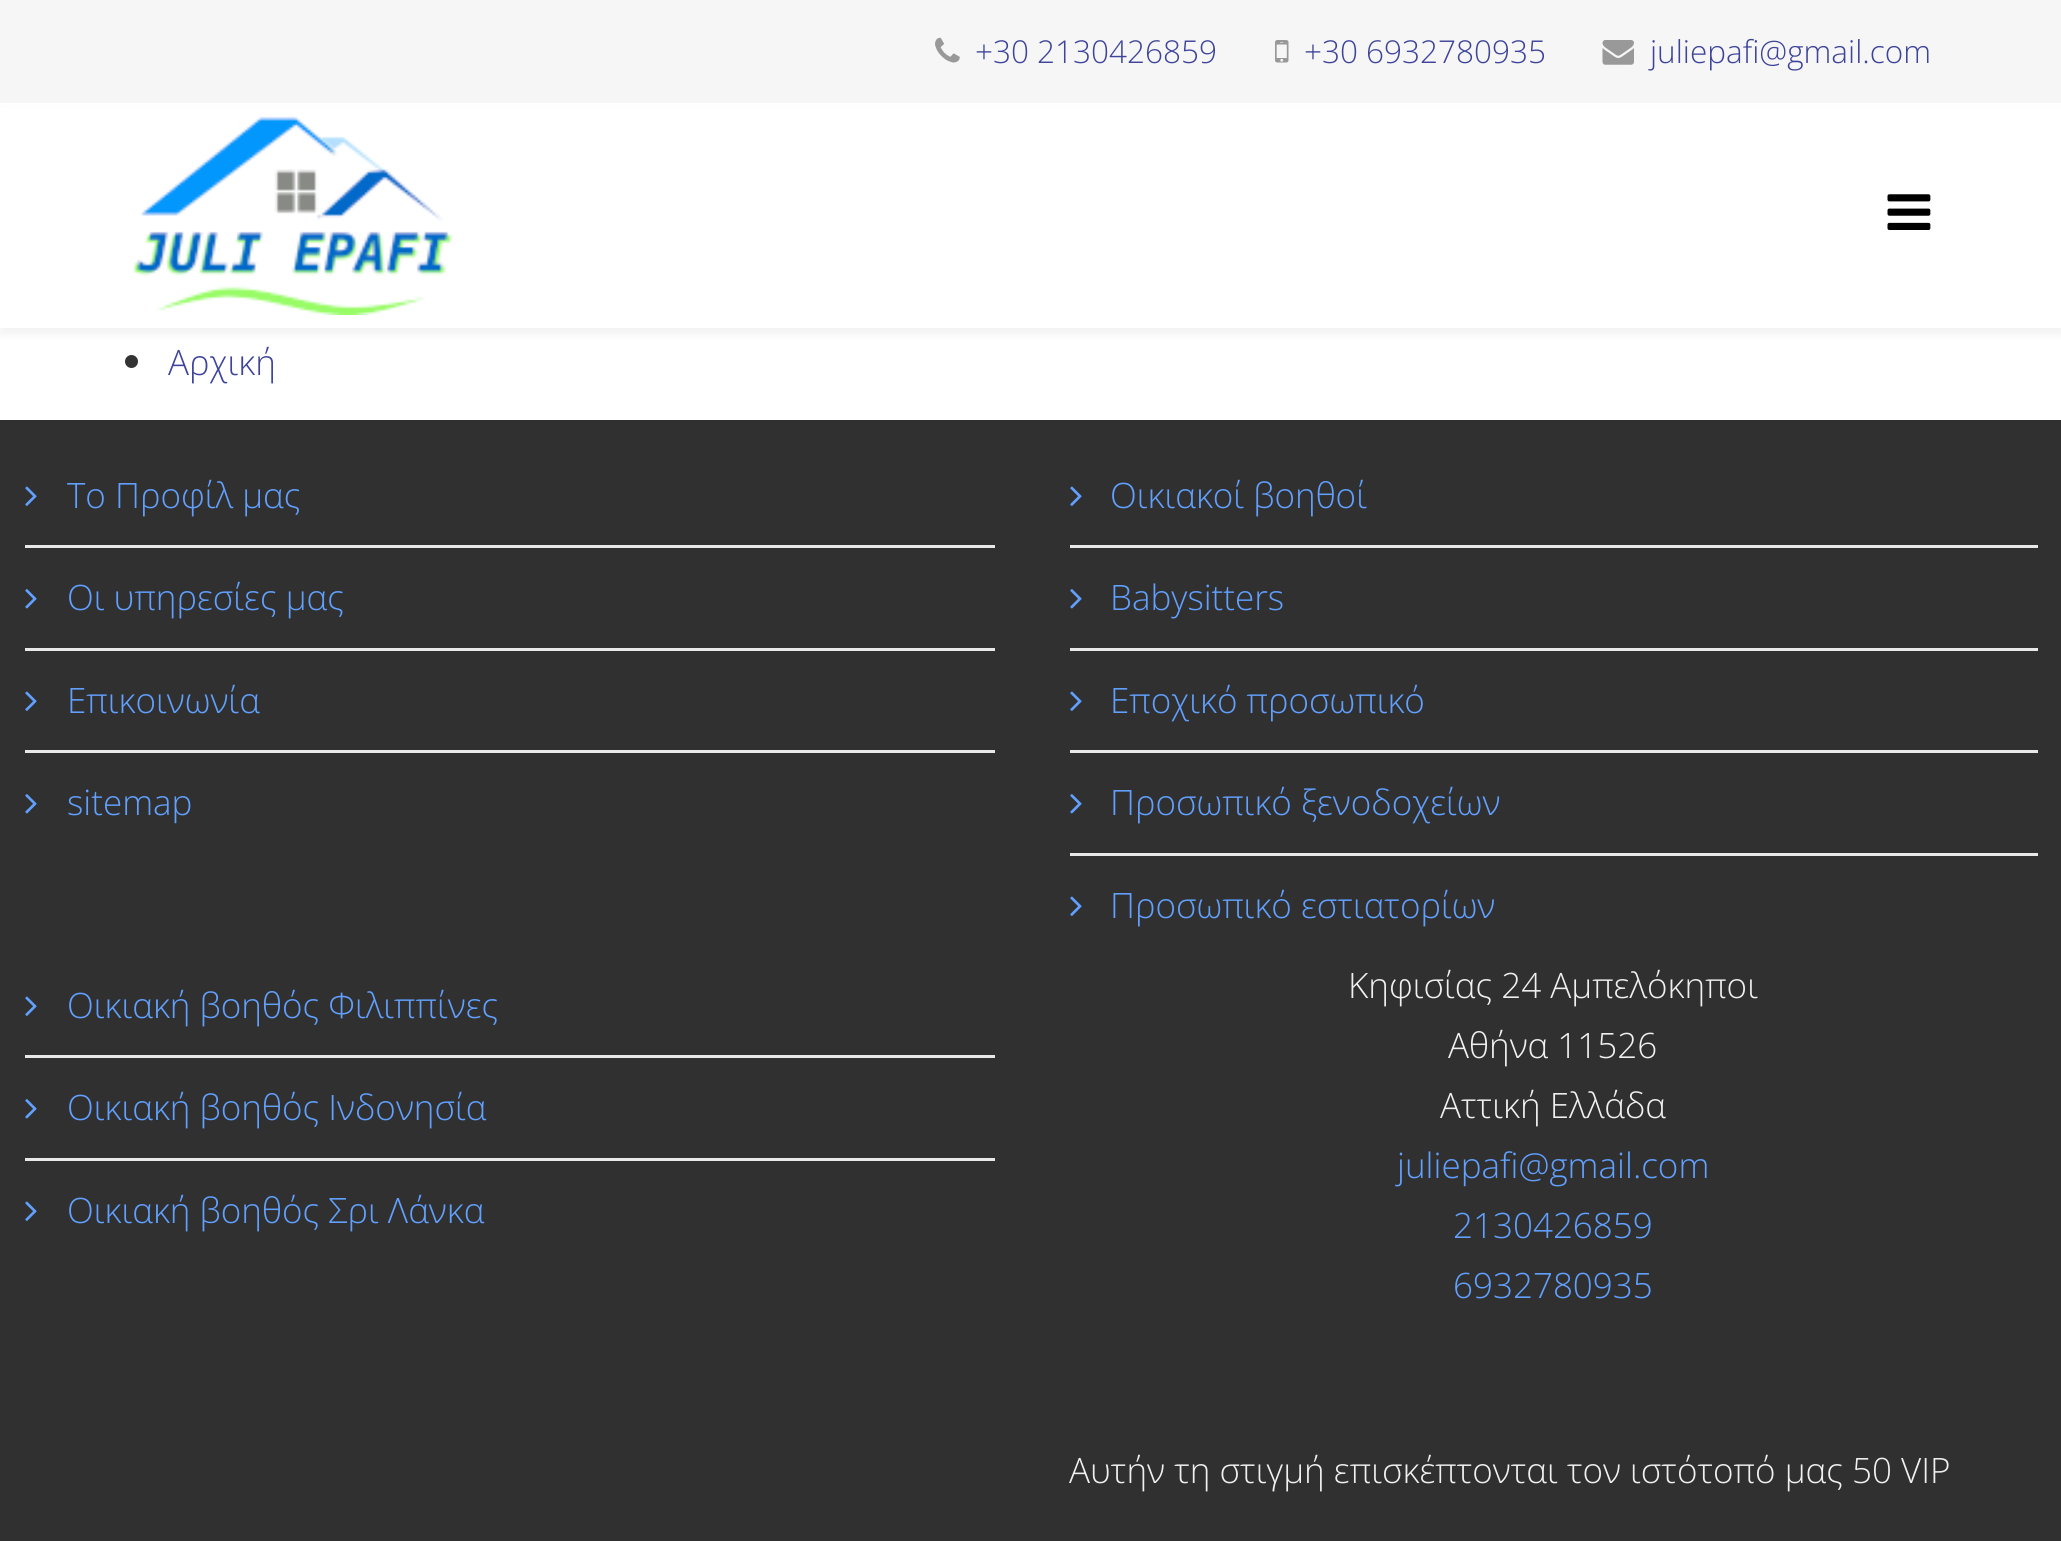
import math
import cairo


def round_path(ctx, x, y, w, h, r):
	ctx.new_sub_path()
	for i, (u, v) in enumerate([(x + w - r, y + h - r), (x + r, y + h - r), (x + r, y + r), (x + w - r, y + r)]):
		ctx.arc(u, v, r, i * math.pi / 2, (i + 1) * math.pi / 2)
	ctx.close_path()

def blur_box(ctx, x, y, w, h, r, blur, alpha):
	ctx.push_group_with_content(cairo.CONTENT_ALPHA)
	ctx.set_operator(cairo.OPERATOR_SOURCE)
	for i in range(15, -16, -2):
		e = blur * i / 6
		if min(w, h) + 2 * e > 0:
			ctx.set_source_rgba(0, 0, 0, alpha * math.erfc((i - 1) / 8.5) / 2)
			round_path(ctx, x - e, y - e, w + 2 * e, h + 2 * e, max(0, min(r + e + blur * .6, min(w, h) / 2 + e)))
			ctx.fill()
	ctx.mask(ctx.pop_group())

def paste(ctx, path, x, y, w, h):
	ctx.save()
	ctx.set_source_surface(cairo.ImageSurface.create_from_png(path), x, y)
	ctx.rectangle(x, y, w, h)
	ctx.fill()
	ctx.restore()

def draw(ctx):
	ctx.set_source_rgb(1, 1, 1)
	ctx.paint()
	ctx.set_source_rgb(0.961, 0.961, 0.961)
	ctx.rectangle(0, 0, 2061, 103)
	ctx.fill()
	paste(ctx, 'media/1.png', 935, 37, 25, 26)
	ctx.select_font_face('Open Sans Light')
	ctx.set_font_size(31.5)
	ctx.set_source_rgb(0.239, 0.267, 0.604)
	ctx.move_to(975, 63)
	ctx.show_text('+30 2130426859')
	paste(ctx, 'media/2.png', 1275, 40, 14, 23)
	ctx.move_to(1304, 63)
	ctx.show_text('+30 6932780935')
	paste(ctx, 'media/3.png', 1602, 40, 32, 25)
	ctx.move_to(1650, 63)
	ctx.show_text('juliepafi@gmail.com')
	ctx.set_source_rgb(0, 0, 0)
	blur_box(ctx, 0, 110, 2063, 225, 0, 4, 0.05)
	ctx.set_source_rgb(1, 1, 1)
	ctx.rectangle(0, 107, 2061, 221)
	ctx.fill()
	paste(ctx, 'media/4.png', 132, 116, 321, 199)
	paste(ctx, 'media/5.png', 1887, 194, 44, 36)
	ctx.set_source_rgb(0.2, 0.2, 0.2)
	ctx.arc(131.5, 361.5, 6.5, 0, 2 * math.pi)
	ctx.fill()
	ctx.set_font_size(35)
	ctx.set_source_rgb(0.239, 0.267, 0.604)
	ctx.move_to(168, 375)
	ctx.show_text('Αρχική')
	ctx.set_source_rgb(0.188, 0.188, 0.188)
	ctx.rectangle(0, 420, 2061, 1121)
	ctx.fill()
	ctx.set_source_rgb(0.91, 0.91, 0.91)
	ctx.rectangle(25, 545, 970, 3)
	ctx.fill()
	paste(ctx, 'media/6.png', 25, 486, 12, 20)
	ctx.set_source_rgb(0.38, 0.627, 1)
	ctx.move_to(67, 508)
	ctx.show_text('Το Προφίλ μας')
	ctx.set_source_rgb(0.91, 0.91, 0.91)
	ctx.rectangle(25, 648, 970, 3)
	ctx.fill()
	paste(ctx, 'media/7.png', 25, 589, 12, 20)
	ctx.set_source_rgb(0.38, 0.627, 1)
	ctx.move_to(67, 610)
	ctx.show_text('Οι υπηρεσίες μας')
	ctx.set_source_rgb(0.91, 0.91, 0.91)
	ctx.rectangle(25, 750, 970, 3)
	ctx.fill()
	paste(ctx, 'media/6.png', 25, 691, 12, 20)
	ctx.set_source_rgb(0.38, 0.627, 1)
	ctx.move_to(67, 713)
	ctx.show_text('Επικοινωνία')
	paste(ctx, 'media/7.png', 25, 794, 12, 20)
	ctx.move_to(67, 815)
	ctx.show_text('sitemap')
	ctx.set_source_rgb(0.91, 0.91, 0.91)
	ctx.rectangle(1070, 545, 968, 3)
	ctx.fill()
	paste(ctx, 'media/6.png', 1070, 486, 12, 20)
	ctx.set_source_rgb(0.38, 0.627, 1)
	ctx.move_to(1110, 508)
	ctx.show_text('Οικιακοί βοηθοί')
	ctx.set_source_rgb(0.91, 0.91, 0.91)
	ctx.rectangle(1070, 648, 968, 3)
	ctx.fill()
	paste(ctx, 'media/7.png', 1070, 589, 12, 20)
	ctx.set_source_rgb(0.38, 0.627, 1)
	ctx.move_to(1110, 610)
	ctx.show_text('Babysitters')
	ctx.set_source_rgb(0.91, 0.91, 0.91)
	ctx.rectangle(1070, 750, 968, 3)
	ctx.fill()
	paste(ctx, 'media/6.png', 1070, 691, 12, 20)
	ctx.set_source_rgb(0.38, 0.627, 1)
	ctx.move_to(1110, 713)
	ctx.show_text('Εποχικό προσωπικό')
	ctx.set_source_rgb(0.91, 0.91, 0.91)
	ctx.rectangle(1070, 853, 968, 3)
	ctx.fill()
	paste(ctx, 'media/7.png', 1070, 794, 12, 20)
	ctx.set_source_rgb(0.38, 0.627, 1)
	ctx.move_to(1110, 815)
	ctx.show_text('Προσωπικό ξενοδοχείων')
	paste(ctx, 'media/6.png', 1070, 896, 12, 20)
	ctx.move_to(1110, 918)
	ctx.show_text('Προσωπικό εστιατορίων')
	ctx.set_source_rgb(0.91, 0.91, 0.91)
	ctx.rectangle(25, 1055, 970, 3)
	ctx.fill()
	paste(ctx, 'media/6.png', 25, 996, 12, 20)
	ctx.set_source_rgb(0.38, 0.627, 1)
	ctx.move_to(67, 1018)
	ctx.show_text('Οικιακή βοηθός Φιλιππίνες')
	ctx.set_source_rgb(0.91, 0.91, 0.91)
	ctx.rectangle(25, 1158, 970, 3)
	ctx.fill()
	paste(ctx, 'media/7.png', 25, 1099, 12, 20)
	ctx.set_source_rgb(0.38, 0.627, 1)
	ctx.move_to(67, 1120)
	ctx.show_text('Οικιακή βοηθός Ινδονησία')
	paste(ctx, 'media/6.png', 25, 1201, 12, 20)
	ctx.move_to(67, 1223)
	ctx.show_text('Οικιακή βοηθός Σρι Λάνκα')
	ctx.set_source_rgb(0.941, 0.941, 0.941)
	for x, y, s in [
		(1348, 998, 'Κηφισίας 24 Αμπελόκηποι'),
		(1448, 1058, 'Αθήνα 11526'),
		(1440, 1118, 'Αττική Ελλάδα'),
	]:
		ctx.move_to(x, y)
		ctx.show_text(s)
	ctx.set_source_rgb(0.38, 0.627, 1)
	for x, y, s in [
		(1397, 1178, 'juliepafi@gmail.com'),
		(1453, 1238, '2130426859'),
		(1453, 1298, '6932780935'),
	]:
		ctx.move_to(x, y)
		ctx.show_text(s)
	ctx.set_source_rgb(0.941, 0.941, 0.941)
	ctx.move_to(1069, 1483)
	ctx.show_text('Αυτήν τη στιγμή επισκέπτονται τον ιστότοπό μας 50 VIP')


surface = cairo.ImageSurface(cairo.FORMAT_RGB24, 2061, 1541)
ctx = cairo.Context(surface)
options = cairo.FontOptions()
options.set_hint_metrics(cairo.HINT_METRICS_OFF)
options.set_hint_style(cairo.HINT_STYLE_NONE)
ctx.set_font_options(options)
ctx.set_miter_limit(4)
draw(ctx)
surface.write_to_png('image.png')
